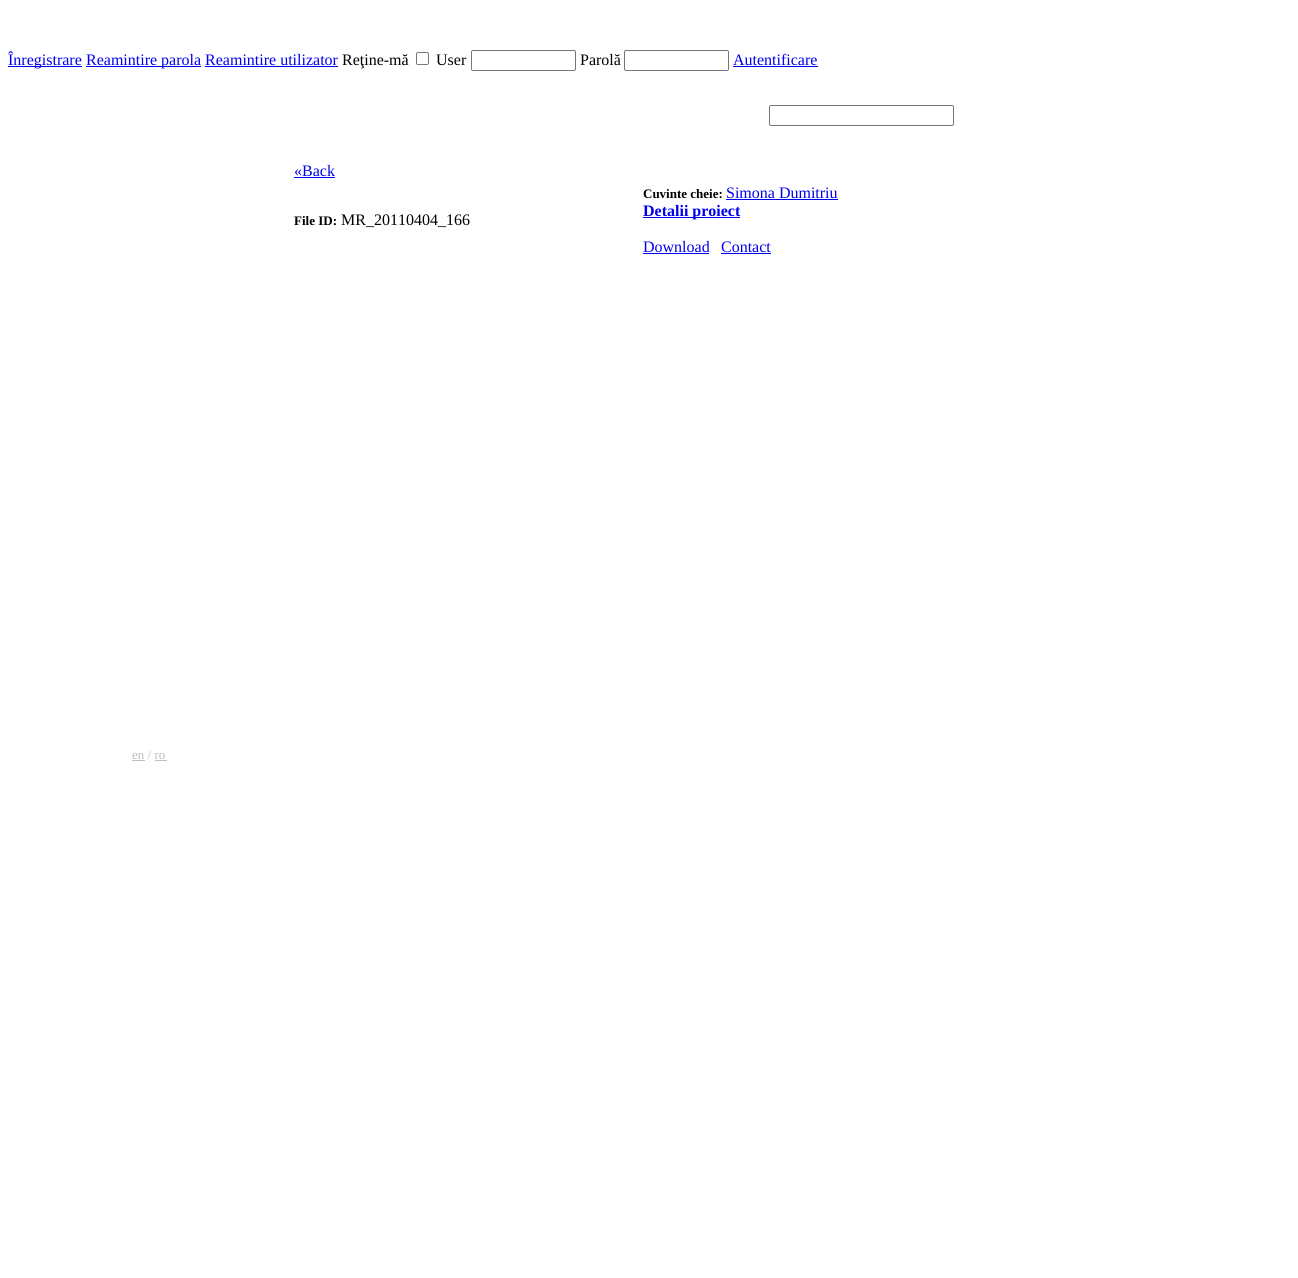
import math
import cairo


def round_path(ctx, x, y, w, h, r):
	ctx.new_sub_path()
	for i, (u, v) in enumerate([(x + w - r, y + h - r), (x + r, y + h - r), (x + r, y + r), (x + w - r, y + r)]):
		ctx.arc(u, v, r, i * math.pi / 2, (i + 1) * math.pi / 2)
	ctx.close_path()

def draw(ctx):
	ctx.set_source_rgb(1, 1, 1)
	ctx.paint()
	ctx.set_source_rgb(0, 0, 0.933)
	ctx.rectangle(8, 66, 74, 1)
	ctx.fill()
	ctx.select_font_face('Liberation Serif')
	ctx.set_font_size(16)
	ctx.move_to(8, 65)
	ctx.show_text('Înregistrare')
	ctx.rectangle(86, 66, 115, 1)
	ctx.fill()
	ctx.move_to(86, 65)
	ctx.show_text('Reamintire parola Reamintire utilizator')
	ctx.set_source_rgb(0, 0, 0)
	ctx.move_to(342, 65)
	ctx.show_text('Reţine-mă')
	round_path(ctx, 416.5, 52.5, 12, 12, 1.5)
	ctx.set_source_rgb(0.463, 0.463, 0.463)
	ctx.set_line_width(1)
	ctx.stroke()
	ctx.set_source_rgb(0, 0, 0)
	ctx.move_to(436, 65)
	ctx.show_text('User')
	round_path(ctx, 471.5, 50.5, 104, 20, 1.5)
	ctx.set_source_rgb(0.463, 0.463, 0.463)
	ctx.stroke()
	ctx.set_source_rgb(0, 0, 0)
	ctx.move_to(580, 65)
	ctx.show_text('Parolă')
	round_path(ctx, 624.5, 50.5, 104, 20, 1.5)
	ctx.set_source_rgb(0.463, 0.463, 0.463)
	ctx.stroke()
	ctx.set_source_rgb(0, 0, 0.933)
	ctx.move_to(733, 65)
	ctx.show_text('Autentificare')
	ctx.rectangle(733, 66, 85, 1)
	ctx.fill()
	ctx.rectangle(205, 66, 133, 1)
	ctx.fill()
	round_path(ctx, 769.5, 105.5, 184, 20, 1.5)
	ctx.set_source_rgb(0.463, 0.463, 0.463)
	ctx.stroke()
	ctx.set_source_rgb(0, 0, 0.933)
	ctx.move_to(294, 176)
	ctx.show_text('«Back')
	ctx.rectangle(294, 177, 41, 1)
	ctx.fill()
	ctx.select_font_face('Liberation Serif', cairo.FONT_SLANT_NORMAL, cairo.FONT_WEIGHT_BOLD)
	ctx.set_font_size(13)
	ctx.set_source_rgb(0, 0, 0)
	ctx.move_to(294, 225)
	ctx.show_text('File ID:')
	ctx.select_font_face('Liberation Serif')
	ctx.set_font_size(16)
	ctx.move_to(341, 225)
	ctx.show_text('MR_20110404_166')
	ctx.select_font_face('Liberation Serif', cairo.FONT_SLANT_NORMAL, cairo.FONT_WEIGHT_BOLD)
	ctx.set_font_size(13)
	ctx.move_to(643, 198)
	ctx.show_text('Cuvinte cheie:')
	ctx.select_font_face('Liberation Serif')
	ctx.set_font_size(16)
	ctx.set_source_rgb(0, 0, 0.933)
	ctx.move_to(726, 198)
	ctx.show_text('Simona Dumitriu')
	ctx.rectangle(726, 199, 112, 1)
	ctx.fill()
	ctx.rectangle(643, 217, 97, 1)
	ctx.fill()
	ctx.select_font_face('Liberation Serif', cairo.FONT_SLANT_NORMAL, cairo.FONT_WEIGHT_BOLD)
	ctx.move_to(643, 216)
	ctx.show_text('Detalii proiect')
	ctx.select_font_face('Liberation Serif')
	ctx.move_to(643, 252)
	ctx.show_text('Download')
	ctx.rectangle(643, 253, 66, 1)
	ctx.fill()
	ctx.move_to(721, 252)
	ctx.show_text('Contact')
	ctx.rectangle(721, 253, 50, 1)
	ctx.fill()
	ctx.set_font_size(13)
	ctx.set_source_rgb(0.733, 0.741, 0.749)
	ctx.move_to(132, 759)
	ctx.show_text('en / ro')
	ctx.rectangle(132, 760, 13, 1)
	ctx.fill()
	ctx.rectangle(155, 760, 12, 1)
	ctx.fill()


surface = cairo.ImageSurface(cairo.FORMAT_RGB24, 1298, 1278)
ctx = cairo.Context(surface)
options = cairo.FontOptions()
options.set_hint_metrics(cairo.HINT_METRICS_OFF)
options.set_hint_style(cairo.HINT_STYLE_NONE)
ctx.set_font_options(options)
ctx.set_miter_limit(4)
draw(ctx)
surface.write_to_png('image.png')
